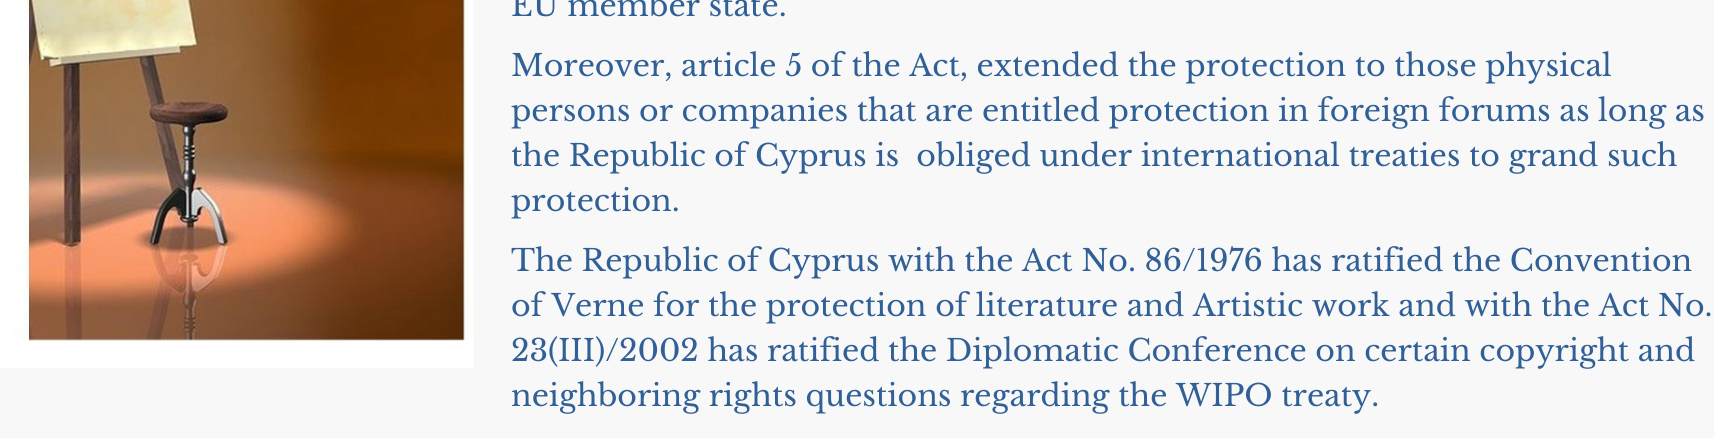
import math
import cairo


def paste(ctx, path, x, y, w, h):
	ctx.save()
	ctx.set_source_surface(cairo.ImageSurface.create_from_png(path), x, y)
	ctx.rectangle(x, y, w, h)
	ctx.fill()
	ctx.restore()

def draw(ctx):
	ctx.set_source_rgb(0.969, 0.969, 0.969)
	ctx.paint()
	paste(ctx, 'media/1.png', 0, 0, 474, 368)
	ctx.select_font_face('Libre Baskerville')
	ctx.set_font_size(30)
	ctx.set_source_rgb(0.192, 0.376, 0.592)
	for x, y, s in [
		(511, 16, 'EU member state.'),
		(511, 76, 'Moreover, article 5 of the Act, extended the protection to those physical'),
		(511, 121, 'persons or companies that are entitled protection in foreign forums as long as'),
		(511, 166, 'the Republic of Cyprus is  obliged under international treaties to grand such'),
		(511, 211, 'protection.'),
		(511, 271, 'The Republic of Cyprus with the Act No. 86/1976 has ratified the Convention'),
		(511, 316, 'of Verne for the protection of literature and Artistic work and with the Act No.'),
		(511, 361, '23(III)/2002 has ratified the Diplomatic Conference on certain copyright and'),
		(511, 406, 'neighboring rights questions regarding the WIPO treaty.'),
	]:
		ctx.move_to(x, y)
		ctx.show_text(s)


surface = cairo.ImageSurface(cairo.FORMAT_RGB24, 1714, 438)
ctx = cairo.Context(surface)
options = cairo.FontOptions()
options.set_hint_metrics(cairo.HINT_METRICS_OFF)
options.set_hint_style(cairo.HINT_STYLE_NONE)
ctx.set_font_options(options)
ctx.set_miter_limit(4)
draw(ctx)
surface.write_to_png('image.png')
